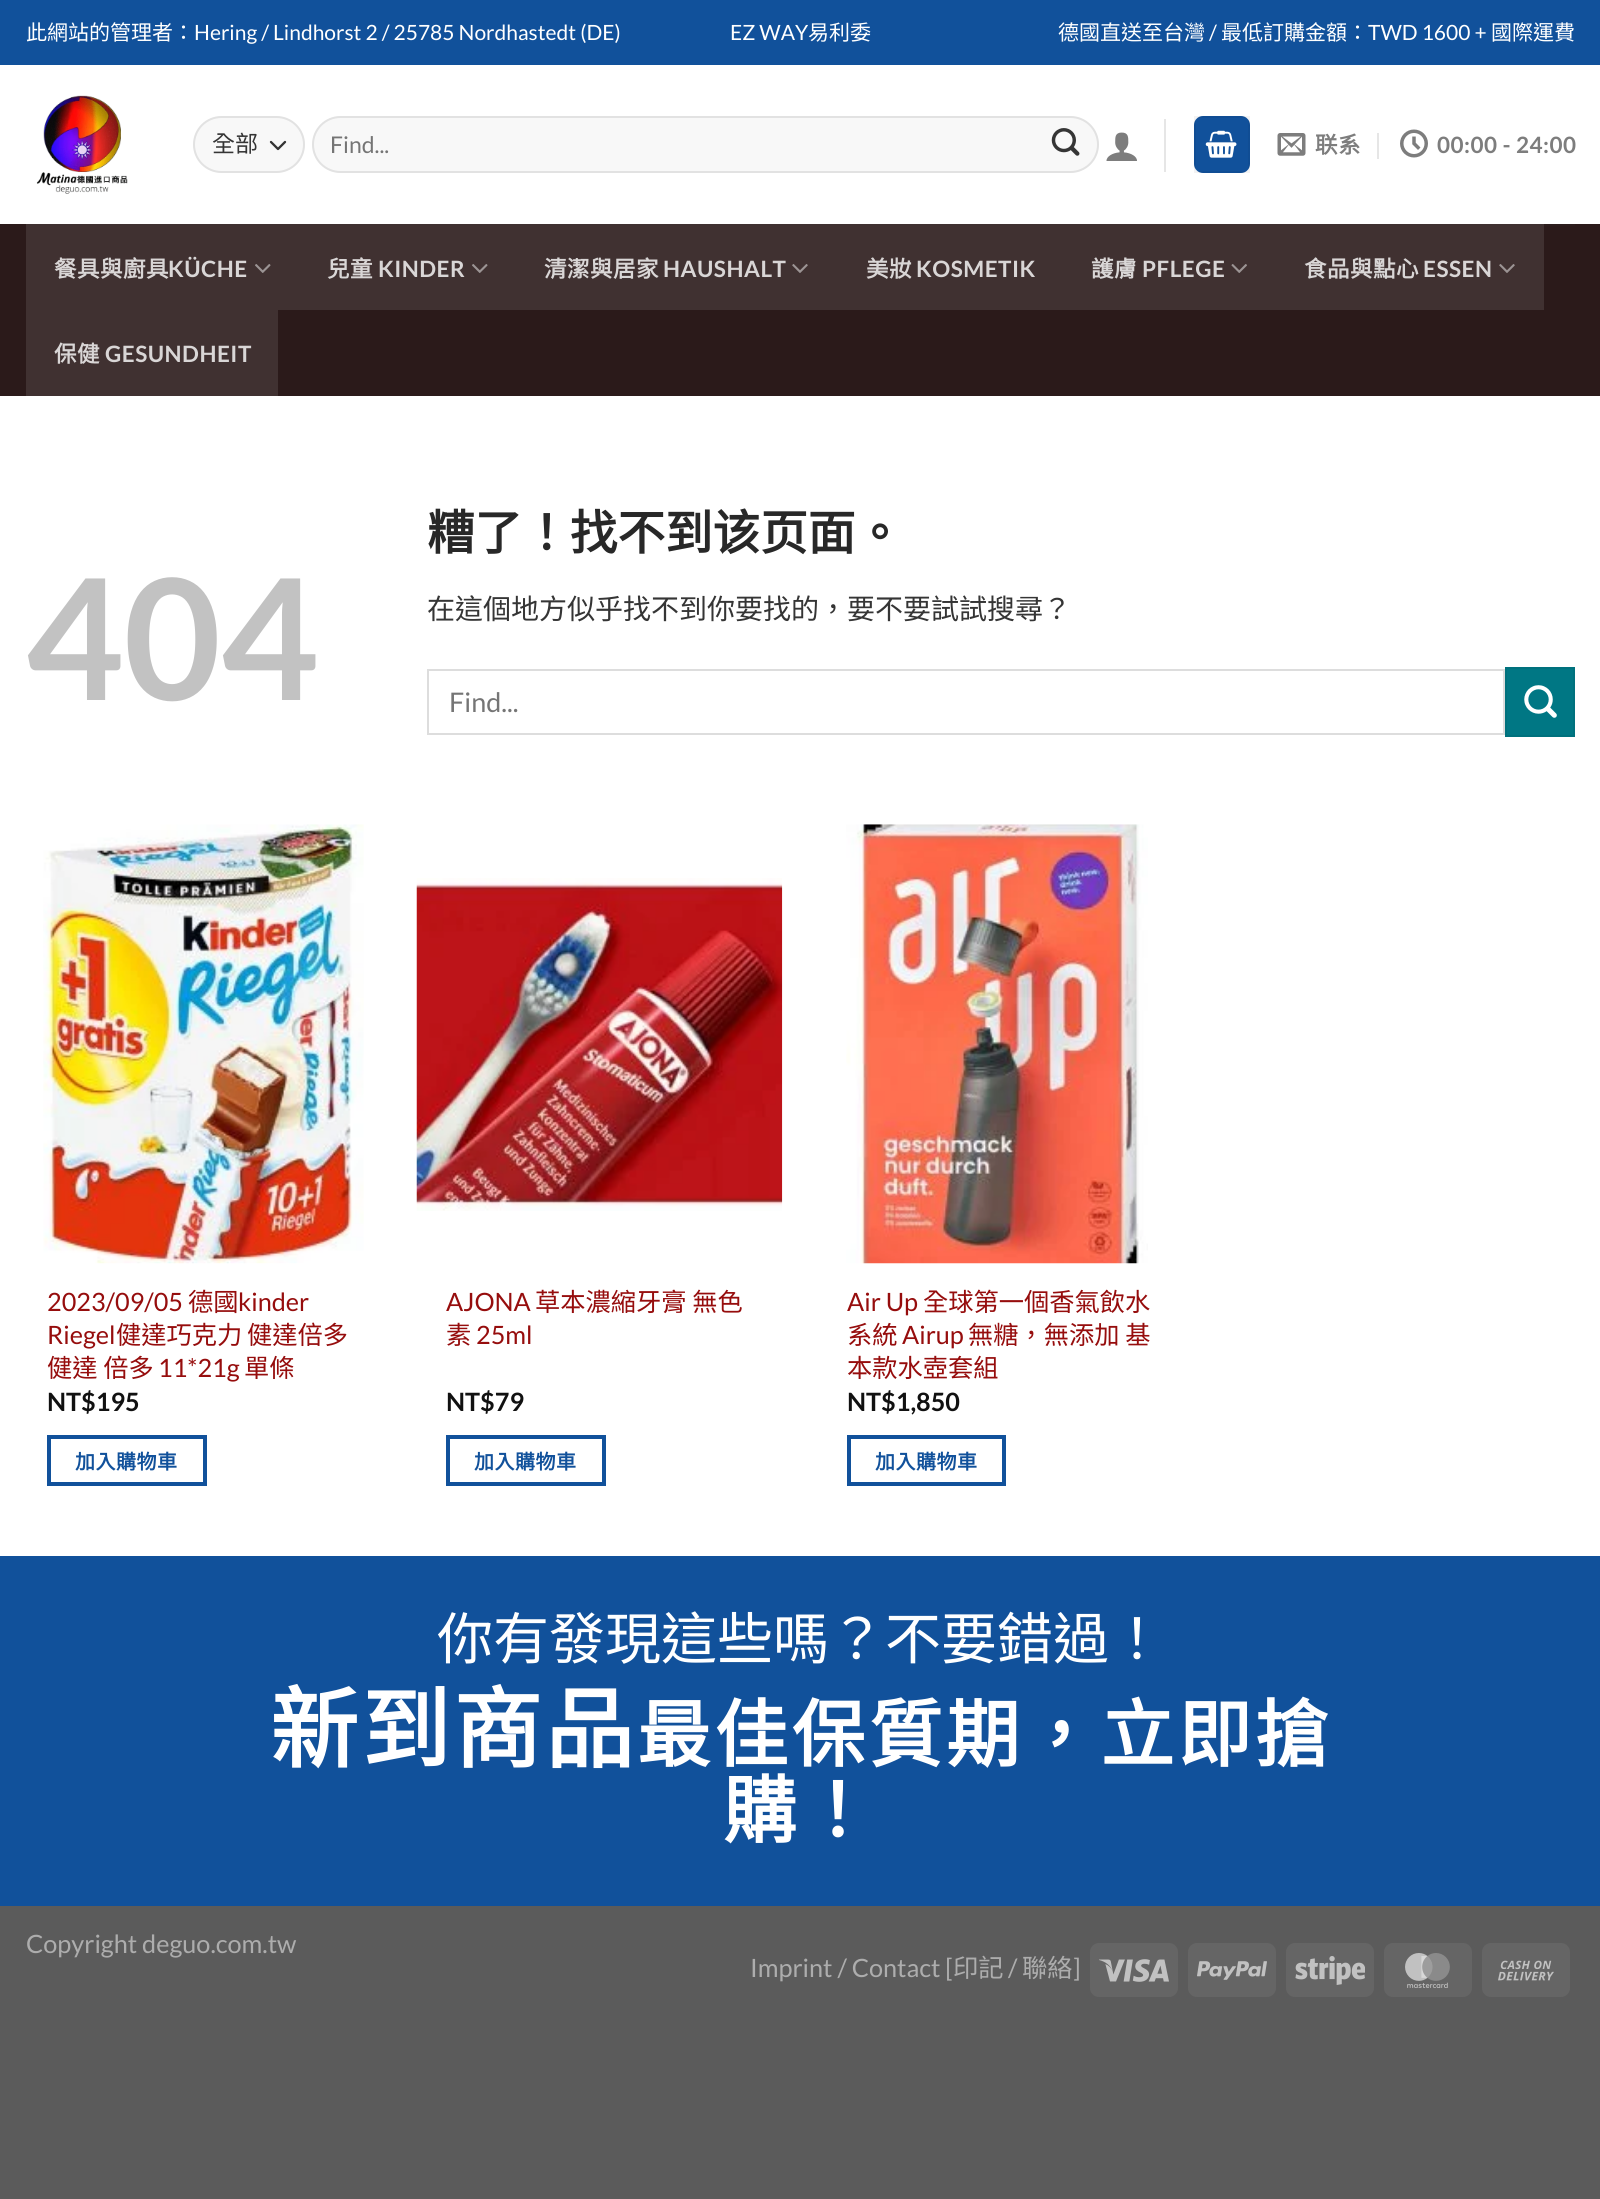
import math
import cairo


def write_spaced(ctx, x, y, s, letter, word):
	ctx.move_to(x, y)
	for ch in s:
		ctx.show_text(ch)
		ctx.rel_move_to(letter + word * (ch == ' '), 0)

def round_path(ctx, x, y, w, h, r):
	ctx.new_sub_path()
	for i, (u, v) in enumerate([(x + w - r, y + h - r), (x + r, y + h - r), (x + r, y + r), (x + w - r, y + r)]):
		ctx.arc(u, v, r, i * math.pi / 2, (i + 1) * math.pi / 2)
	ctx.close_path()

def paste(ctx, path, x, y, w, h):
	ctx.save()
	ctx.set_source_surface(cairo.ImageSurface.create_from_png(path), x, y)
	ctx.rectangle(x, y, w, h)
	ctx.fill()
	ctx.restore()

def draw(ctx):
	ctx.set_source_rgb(0.357, 0.357, 0.357)
	ctx.paint()
	ctx.set_source_rgb(1, 1, 1)
	ctx.rectangle(0, 65, 1600, 1491)
	ctx.fill()
	ctx.set_source_rgb(0.067, 0.318, 0.608)
	ctx.rectangle(0, 0, 1600, 65)
	ctx.fill()
	ctx.select_font_face('Noto Sans CJK TC')
	ctx.set_font_size(21)
	ctx.set_source_rgb(1, 1, 1)
	ctx.move_to(26, 40)
	ctx.show_text('此網站的管理者：')
	ctx.select_font_face('Lato')
	ctx.move_to(194, 40)
	ctx.show_text('Hering / Lindhorst 2 / 25785 Nordhastedt (DE)')
	ctx.move_to(730, 40)
	ctx.show_text('EZ WAY')
	ctx.select_font_face('Noto Sans CJK TC')
	ctx.move_to(808, 40)
	ctx.show_text('易利委')
	ctx.move_to(1058, 40)
	ctx.show_text('德國直送至台灣')
	ctx.select_font_face('Lato')
	ctx.move_to(1209, 40)
	ctx.show_text('/')
	ctx.select_font_face('Noto Sans CJK TC')
	ctx.move_to(1221, 40)
	ctx.show_text('最低訂購金額：')
	ctx.select_font_face('Lato')
	ctx.move_to(1368, 40)
	ctx.show_text('TWD 1600 +')
	ctx.select_font_face('Noto Sans CJK TC')
	ctx.move_to(1491, 40)
	ctx.show_text('國際運費')
	paste(ctx, 'media/1.png', 36, 95, 92, 99)
	ctx.set_source_rgb(0.969, 0.969, 0.969)
	round_path(ctx, 193, 116, 112, 57, 28.5)
	ctx.fill()
	ctx.new_path()
	ctx.move_to(271, 142)
	ctx.line_to(278, 149)
	ctx.line_to(285, 142)
	ctx.set_source_rgb(0.2, 0.2, 0.2)
	ctx.set_line_width(2.3)
	ctx.set_line_cap(cairo.LINE_CAP_ROUND)
	ctx.set_line_join(cairo.LINE_JOIN_ROUND)
	ctx.stroke()
	round_path(ctx, 194, 117, 110, 55, 27.5)
	ctx.set_source_rgba(0, 0, 0, 0.09)
	ctx.set_line_width(2)
	ctx.set_line_cap(cairo.LINE_CAP_BUTT)
	ctx.set_line_join(cairo.LINE_JOIN_MITER)
	ctx.stroke()
	ctx.set_font_size(23)
	ctx.set_source_rgb(0.208, 0.208, 0.208)
	ctx.move_to(212, 152)
	ctx.show_text('全部')
	ctx.set_source_rgb(0.969, 0.969, 0.969)
	round_path(ctx, 312, 116, 787, 57, 28.5)
	ctx.fill()
	round_path(ctx, 313, 117, 785, 55, 27.5)
	ctx.set_source_rgba(0, 0, 0, 0.09)
	ctx.stroke()
	ctx.select_font_face('Lato')
	ctx.set_source_rgb(0.459, 0.459, 0.459)
	ctx.move_to(330, 153)
	ctx.show_text('Find...')
	paste(ctx, 'media/2.png', 1051, 128, 29, 28)
	paste(ctx, 'media/3.png', 1106, 132, 31, 29)
	ctx.set_source_rgb(0.902, 0.902, 0.902)
	ctx.rectangle(1164, 119, 2, 53)
	ctx.fill()
	ctx.set_source_rgb(0.067, 0.318, 0.608)
	round_path(ctx, 1194, 116, 56, 57, 9)
	ctx.fill()
	ctx.rectangle(1195, 117, 54, 55)
	ctx.set_source_rgba(0, 0, 0, 0.05)
	ctx.stroke()
	paste(ctx, 'media/4.png', 1205, 130, 32, 28)
	paste(ctx, 'media/5.png', 1277, 133, 29, 23)
	ctx.select_font_face('Noto Sans CJK TC', cairo.FONT_SLANT_NORMAL, cairo.FONT_WEIGHT_BOLD)
	ctx.set_font_size(22.5)
	ctx.set_source_rgb(0.49, 0.49, 0.49)
	write_spaced(ctx, 1315, 153, '联系', 0.5, 0)
	ctx.set_source_rgb(0.902, 0.902, 0.902)
	ctx.rectangle(1377, 133, 2, 26)
	ctx.fill()
	paste(ctx, 'media/6.png', 1400, 129, 28, 29)
	ctx.select_font_face('Lato', cairo.FONT_SLANT_NORMAL, cairo.FONT_WEIGHT_BOLD)
	ctx.set_source_rgb(0.49, 0.49, 0.49)
	write_spaced(ctx, 1437, 153, '00:00 - 24:00', 0.5, 0)
	ctx.set_source_rgb(0.169, 0.102, 0.102)
	ctx.rectangle(0, 224, 1600, 172)
	ctx.fill()
	ctx.set_source_rgb(0.173, 0.114, 0.114)
	ctx.rectangle(1544, 224, 31, 2)
	ctx.fill()
	ctx.set_source_rgb(0.251, 0.192, 0.192)
	ctx.rectangle(26, 226, 1518, 84)
	ctx.fill()
	ctx.set_source_rgb(0.247, 0.192, 0.192)
	ctx.rectangle(26, 224, 1518, 2)
	ctx.fill()
	ctx.select_font_face('Noto Sans CJK TC', cairo.FONT_SLANT_NORMAL, cairo.FONT_WEIGHT_BOLD)
	ctx.set_source_rgb(0.851, 0.839, 0.839)
	write_spaced(ctx, 54, 277, '餐具與廚具', 0.5, 0)
	ctx.select_font_face('Lato', cairo.FONT_SLANT_NORMAL, cairo.FONT_WEIGHT_BOLD)
	write_spaced(ctx, 168, 277, 'KÜCHE', 0.5, 0)
	paste(ctx, 'media/7.png', 255, 264, 16, 9)
	ctx.select_font_face('Noto Sans CJK TC', cairo.FONT_SLANT_NORMAL, cairo.FONT_WEIGHT_BOLD)
	write_spaced(ctx, 327, 277, '兒童', 0.5, 0)
	ctx.select_font_face('Lato', cairo.FONT_SLANT_NORMAL, cairo.FONT_WEIGHT_BOLD)
	write_spaced(ctx, 378, 277, 'KINDER', 0.5, 0)
	paste(ctx, 'media/7.png', 472, 264, 16, 9)
	ctx.select_font_face('Noto Sans CJK TC', cairo.FONT_SLANT_NORMAL, cairo.FONT_WEIGHT_BOLD)
	write_spaced(ctx, 544, 277, '清潔與居家', 0.5, 0)
	ctx.select_font_face('Lato', cairo.FONT_SLANT_NORMAL, cairo.FONT_WEIGHT_BOLD)
	write_spaced(ctx, 663, 277, 'HAUSHALT', 0.5, 0)
	paste(ctx, 'media/8.png', 792, 264, 16, 9)
	ctx.select_font_face('Noto Sans CJK TC', cairo.FONT_SLANT_NORMAL, cairo.FONT_WEIGHT_BOLD)
	write_spaced(ctx, 866, 277, '美妝', 0.5, 0)
	ctx.select_font_face('Lato', cairo.FONT_SLANT_NORMAL, cairo.FONT_WEIGHT_BOLD)
	write_spaced(ctx, 916, 277, 'KOSMETIK', 0.5, 0)
	ctx.select_font_face('Noto Sans CJK TC', cairo.FONT_SLANT_NORMAL, cairo.FONT_WEIGHT_BOLD)
	write_spaced(ctx, 1091, 277, '護膚', 0.5, 0)
	ctx.select_font_face('Lato', cairo.FONT_SLANT_NORMAL, cairo.FONT_WEIGHT_BOLD)
	write_spaced(ctx, 1142, 277, 'PFLEGE', 0.5, 0)
	paste(ctx, 'media/9.png', 1231, 264, 16, 9)
	ctx.select_font_face('Noto Sans CJK TC', cairo.FONT_SLANT_NORMAL, cairo.FONT_WEIGHT_BOLD)
	write_spaced(ctx, 1304, 277, '食品與點心', 0.5, 0)
	ctx.select_font_face('Lato', cairo.FONT_SLANT_NORMAL, cairo.FONT_WEIGHT_BOLD)
	write_spaced(ctx, 1423, 277, 'ESSEN', 0.5, 0)
	paste(ctx, 'media/8.png', 1499, 264, 16, 9)
	ctx.set_source_rgb(0.251, 0.192, 0.192)
	ctx.rectangle(26, 310, 252, 86)
	ctx.fill()
	ctx.select_font_face('Noto Sans CJK TC', cairo.FONT_SLANT_NORMAL, cairo.FONT_WEIGHT_BOLD)
	ctx.set_source_rgb(0.851, 0.839, 0.839)
	write_spaced(ctx, 54, 362, '保健', 0.5, 0)
	ctx.select_font_face('Lato', cairo.FONT_SLANT_NORMAL, cairo.FONT_WEIGHT_BOLD)
	write_spaced(ctx, 105, 362, 'GESUNDHEIT', 0.5, 0)
	ctx.set_font_size(168)
	ctx.set_source_rgb(0.761, 0.761, 0.761)
	ctx.move_to(26, 700)
	ctx.show_text('404')
	ctx.select_font_face('Noto Sans CJK TC', cairo.FONT_SLANT_NORMAL, cairo.FONT_WEIGHT_BOLD)
	ctx.set_font_size(47.6)
	ctx.set_source_rgb(0.157, 0.157, 0.157)
	ctx.move_to(427, 550)
	ctx.show_text('糟了！找不到该页面。')
	ctx.select_font_face('Noto Sans CJK TC')
	ctx.set_font_size(28)
	ctx.set_source_rgb(0.208, 0.208, 0.208)
	ctx.move_to(427, 619)
	ctx.show_text('在這個地方似乎找不到你要找的，要不要試試搜尋？')
	ctx.rectangle(428, 670, 1076, 64)
	ctx.set_source_rgb(0.867, 0.867, 0.867)
	ctx.stroke()
	ctx.select_font_face('Lato')
	ctx.set_font_size(27)
	ctx.set_source_rgb(0.459, 0.459, 0.459)
	ctx.move_to(449, 712)
	ctx.show_text('Find...')
	ctx.set_source_rgb(0, 0.467, 0.518)
	ctx.rectangle(1506, 668, 68, 68)
	ctx.fill_preserve()
	ctx.set_source_rgb(0, 0.443, 0.49)
	ctx.stroke()
	paste(ctx, 'media/10.png', 1524, 685, 33, 33)
	paste(ctx, 'media/11.png', 43, 824, 321, 440)
	ctx.set_font_size(25.25)
	ctx.set_source_rgb(0.588, 0.051, 0.051)
	ctx.move_to(47, 1311)
	ctx.show_text('2023/09/05')
	ctx.select_font_face('Noto Sans CJK TC')
	ctx.move_to(188, 1311)
	ctx.show_text('德國')
	ctx.select_font_face('Lato')
	ctx.move_to(238, 1311)
	ctx.show_text('kinder')
	ctx.move_to(47, 1344)
	ctx.show_text('Riegel')
	ctx.select_font_face('Noto Sans CJK TC')
	write_spaced(ctx, 116, 1344, '健達巧克力 健達倍多', 0, -1)
	ctx.move_to(47, 1377)
	ctx.show_text('健達 倍多')
	ctx.select_font_face('Lato')
	ctx.move_to(158, 1377)
	ctx.show_text('11*21g')
	ctx.select_font_face('Noto Sans CJK TC')
	ctx.move_to(244, 1377)
	ctx.show_text('單條')
	ctx.select_font_face('Lato', cairo.FONT_SLANT_NORMAL, cairo.FONT_WEIGHT_BOLD)
	ctx.set_source_rgb(0.067, 0.067, 0.067)
	ctx.move_to(47, 1411)
	ctx.show_text('NT$195')
	ctx.rectangle(49, 1437, 156, 47)
	ctx.set_source_rgb(0.067, 0.318, 0.608)
	ctx.set_line_width(4)
	ctx.stroke()
	ctx.select_font_face('Noto Sans CJK TC', cairo.FONT_SLANT_NORMAL, cairo.FONT_WEIGHT_BOLD)
	ctx.set_font_size(20)
	write_spaced(ctx, 75, 1469, '加入購物車', 0.5, 0)
	paste(ctx, 'media/12.png', 416, 878, 367, 333)
	ctx.select_font_face('Lato')
	ctx.set_font_size(25.25)
	ctx.set_source_rgb(0.588, 0.051, 0.051)
	ctx.move_to(446, 1311)
	ctx.show_text('AJONA')
	ctx.select_font_face('Noto Sans CJK TC')
	ctx.move_to(535, 1311)
	ctx.show_text('草本濃縮牙膏 無色')
	ctx.move_to(446, 1344)
	ctx.show_text('素')
	ctx.select_font_face('Lato')
	ctx.move_to(476, 1344)
	ctx.show_text('25ml')
	ctx.select_font_face('Lato', cairo.FONT_SLANT_NORMAL, cairo.FONT_WEIGHT_BOLD)
	ctx.set_source_rgb(0.067, 0.067, 0.067)
	ctx.move_to(446, 1411)
	ctx.show_text('NT$79')
	ctx.rectangle(448, 1437, 156, 47)
	ctx.set_source_rgb(0.067, 0.318, 0.608)
	ctx.stroke()
	ctx.select_font_face('Noto Sans CJK TC', cairo.FONT_SLANT_NORMAL, cairo.FONT_WEIGHT_BOLD)
	ctx.set_font_size(20)
	write_spaced(ctx, 474, 1469, '加入購物車', 0.5, 0)
	paste(ctx, 'media/13.png', 846, 824, 302, 440)
	ctx.select_font_face('Lato')
	ctx.set_font_size(25.25)
	ctx.set_source_rgb(0.588, 0.051, 0.051)
	ctx.move_to(847, 1311)
	ctx.show_text('Air Up')
	ctx.select_font_face('Noto Sans CJK TC')
	ctx.move_to(923, 1311)
	ctx.show_text('全球第一個香氣飲水')
	ctx.move_to(847, 1344)
	ctx.show_text('系統')
	ctx.select_font_face('Lato')
	ctx.move_to(902, 1344)
	ctx.show_text('Airup')
	ctx.select_font_face('Noto Sans CJK TC')
	ctx.move_to(968, 1344)
	ctx.show_text('無糖，無添加 基')
	ctx.move_to(847, 1377)
	ctx.show_text('本款水壺套組')
	ctx.select_font_face('Lato', cairo.FONT_SLANT_NORMAL, cairo.FONT_WEIGHT_BOLD)
	ctx.set_source_rgb(0.067, 0.067, 0.067)
	ctx.move_to(847, 1411)
	ctx.show_text('NT$1,850')
	ctx.rectangle(849, 1437, 155, 47)
	ctx.set_source_rgb(0.067, 0.318, 0.608)
	ctx.stroke()
	ctx.select_font_face('Noto Sans CJK TC', cairo.FONT_SLANT_NORMAL, cairo.FONT_WEIGHT_BOLD)
	ctx.set_font_size(20)
	write_spaced(ctx, 875, 1469, '加入購物車', 0.5, 0)
	ctx.rectangle(0, 1556, 1600, 350)
	ctx.fill()
	ctx.select_font_face('Noto Sans CJK TC')
	ctx.set_font_size(56)
	ctx.set_source_rgb(1, 1, 1)
	ctx.move_to(437, 1659)
	ctx.show_text('你有發現這些嗎？不要錯過！')
	ctx.select_font_face('Noto Sans CJK TC', cairo.FONT_SLANT_NORMAL, cairo.FONT_WEIGHT_BOLD)
	ctx.set_font_size(88)
	write_spaced(ctx, 270, 1761, '新到商品', 3.75, 0)
	ctx.set_font_size(73.5)
	write_spaced(ctx, 637, 1761, '最佳保質期，立即搶', 3.75, 0)
	write_spaced(ctx, 723, 1837, '購！', 3.75, 0)
	ctx.select_font_face('Lato')
	ctx.set_font_size(25.25)
	ctx.set_source_rgb(0.678, 0.678, 0.678)
	ctx.move_to(26, 1953)
	ctx.show_text('Copyright deguo.com.tw')
	ctx.move_to(750, 1977)
	ctx.show_text('Imprint / Contact [')
	ctx.select_font_face('Noto Sans CJK TC')
	ctx.move_to(953, 1977)
	ctx.show_text('印記')
	ctx.select_font_face('Lato')
	ctx.move_to(1008, 1977)
	ctx.show_text('/')
	ctx.select_font_face('Noto Sans CJK TC')
	ctx.move_to(1022, 1977)
	ctx.show_text('聯絡')
	ctx.select_font_face('Lato')
	ctx.move_to(1073, 1977)
	ctx.show_text(']')
	ctx.set_source_rgb(0.396, 0.396, 0.396)
	round_path(ctx, 1090, 1943, 88, 54, 9)
	ctx.fill()
	paste(ctx, 'media/14.png', 1099, 1959, 70, 23)
	round_path(ctx, 1188, 1943, 88, 54, 9)
	ctx.fill()
	paste(ctx, 'media/15.png', 1197, 1961, 70, 19)
	round_path(ctx, 1286, 1943, 88, 54, 9)
	ctx.fill()
	paste(ctx, 'media/16.png', 1295, 1956, 70, 29)
	round_path(ctx, 1384, 1943, 88, 54, 9)
	ctx.fill()
	paste(ctx, 'media/17.png', 1405, 1953, 45, 35)
	round_path(ctx, 1482, 1943, 88, 54, 9)
	ctx.fill()
	paste(ctx, 'media/18.png', 1498, 1960, 56, 21)


surface = cairo.ImageSurface(cairo.FORMAT_RGB24, 1600, 2199)
ctx = cairo.Context(surface)
options = cairo.FontOptions()
options.set_hint_metrics(cairo.HINT_METRICS_OFF)
options.set_hint_style(cairo.HINT_STYLE_NONE)
ctx.set_font_options(options)
ctx.set_miter_limit(4)
draw(ctx)
surface.write_to_png('image.png')
